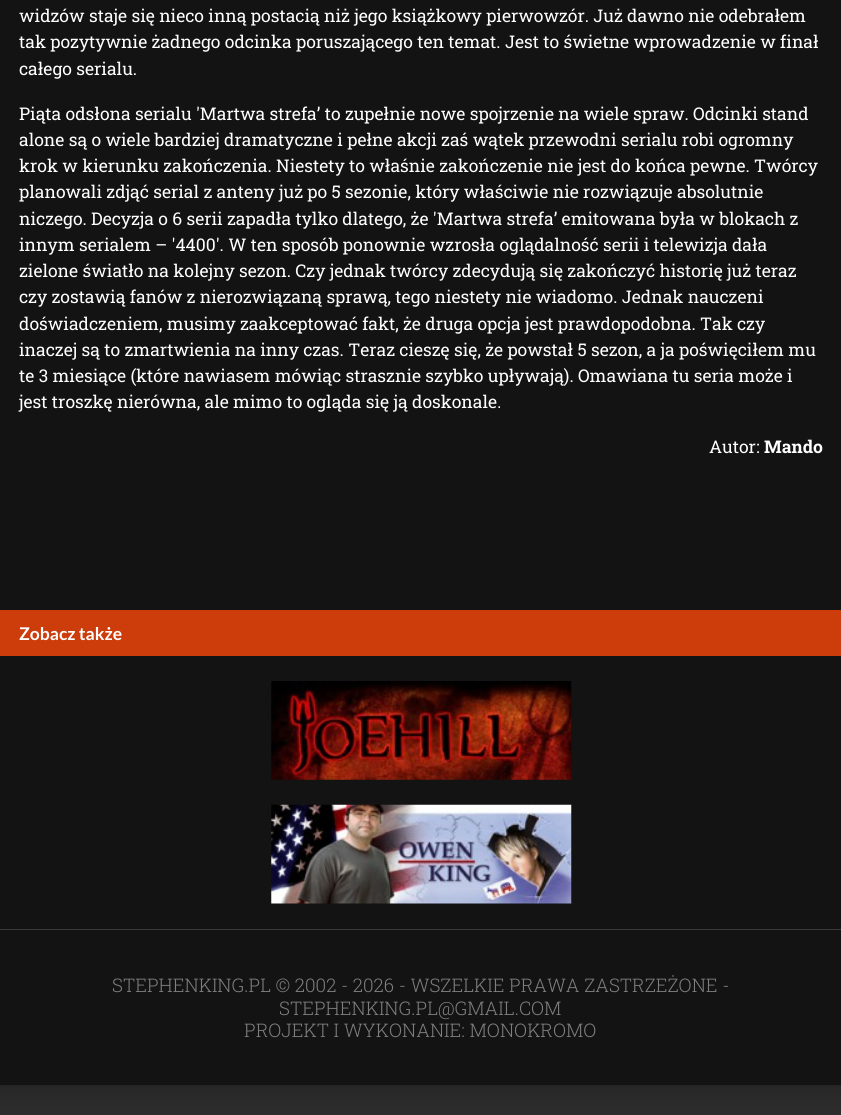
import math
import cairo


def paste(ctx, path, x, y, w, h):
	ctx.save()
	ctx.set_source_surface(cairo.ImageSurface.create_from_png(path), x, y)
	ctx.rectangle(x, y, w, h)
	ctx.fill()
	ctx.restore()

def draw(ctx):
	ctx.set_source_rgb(0.078, 0.078, 0.078)
	ctx.paint()
	ctx.select_font_face('Roboto Slab')
	ctx.set_font_size(17.5)
	ctx.set_source_rgb(1, 1, 1)
	for x, y, s in [
		(19, 22, 'widzów staje się nieco inną postacią niż jego książkowy pierwowzór. Już dawno nie odebrałem'),
		(19, 48, 'tak pozytywnie żadnego odcinka poruszającego ten temat. Jest to świetne wprowadzenie w finał'),
		(19, 75, 'całego serialu.'),
		(19, 120, 'Piąta odsłona serialu \'Martwa strefa’ to zupełnie nowe spojrzenie na wiele spraw. Odcinki stand'),
		(19, 146, 'alone są o wiele bardziej dramatyczne i pełne akcji zaś wątek przewodni serialu robi ogromny'),
		(19, 172, 'krok w kierunku zakończenia. Niestety to właśnie zakończenie nie jest do końca pewne. Twórcy'),
		(19, 198, 'planowali zdjąć serial z anteny już po 5 sezonie, który właściwie nie rozwiązuje absolutnie'),
		(19, 225, 'niczego. Decyzja o 6 serii zapadła tylko dlatego, że \'Martwa strefa’ emitowana była w blokach z'),
		(19, 251, 'innym serialem – \'4400′. W ten sposób ponownie wzrosła oglądalność serii i telewizja dała'),
		(19, 277, 'zielone światło na kolejny sezon. Czy jednak twórcy zdecydują się zakończyć historię już teraz'),
		(19, 303, 'czy zostawią fanów z nierozwiązaną sprawą, tego niestety nie wiadomo. Jednak nauczeni'),
		(19, 330, 'doświadczeniem, musimy zaakceptować fakt, że druga opcja jest prawdopodobna. Tak czy'),
		(19, 356, 'inaczej są to zmartwienia na inny czas. Teraz cieszę się, że powstał 5 sezon, a ja poświęciłem mu'),
		(19, 382, 'te 3 miesiące (które nawiasem mówiąc strasznie szybko upływają). Omawiana tu seria może i'),
		(19, 408, 'jest troszkę nierówna, ale mimo to ogląda się ją doskonale.'),
		(709, 453, 'Autor:'),
	]:
		ctx.move_to(x, y)
		ctx.show_text(s)
	ctx.select_font_face('Roboto Slab', cairo.FONT_SLANT_NORMAL, cairo.FONT_WEIGHT_BOLD)
	ctx.move_to(764, 453)
	ctx.show_text('Mando')
	ctx.set_source_rgb(0.8, 0.239, 0.043)
	ctx.rectangle(0, 610, 841, 46)
	ctx.fill()
	ctx.select_font_face('Lato', cairo.FONT_SLANT_NORMAL, cairo.FONT_WEIGHT_BOLD)
	ctx.set_source_rgb(1, 1, 1)
	ctx.move_to(19, 640)
	ctx.show_text('Zobacz także')
	paste(ctx, 'media/1.png', 271, 681, 301, 99)
	paste(ctx, 'media/2.png', 271, 804, 301, 100)
	ctx.set_source_rgb(0.227, 0.227, 0.227)
	ctx.rectangle(0, 929, 841, 1)
	ctx.fill()
	ctx.select_font_face('Roboto Slab Light')
	ctx.set_font_size(18.75)
	ctx.set_source_rgb(0.498, 0.498, 0.498)
	for x, y, s in [
		(112, 992, 'STEPHENKING.PL © 2002 - 2026 - WSZELKIE PRAWA ZASTRZEŻONE -'),
		(279, 1015, 'STEPHENKING.PL@GMAIL.COM'),
		(244, 1037, 'PROJEKT I WYKONANIE: MONOKROMO'),
	]:
		ctx.move_to(x, y)
		ctx.show_text(s)
	gradient = cairo.LinearGradient(421, 1085, 421, 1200)
	gradient.add_color_stop_rgba(0, 0.145, 0.145, 0.145, 1)
	gradient.add_color_stop_rgba(0.04, 0.157, 0.157, 0.157, 1)
	gradient.add_color_stop_rgba(0.28, 0.18, 0.18, 0.18, 1)
	gradient.add_color_stop_rgba(0.72, 0.247, 0.247, 0.247, 1)
	gradient.add_color_stop_rgba(0.97, 0.275, 0.275, 0.275, 1)
	gradient.add_color_stop_rgba(0.99, 0.251, 0.251, 0.251, 1)
	gradient.add_color_stop_rgba(1, 0, 0, 0, 1)
	ctx.set_source(gradient)
	ctx.rectangle(0, 1085, 841, 30)
	ctx.fill()


surface = cairo.ImageSurface(cairo.FORMAT_RGB24, 841, 1115)
ctx = cairo.Context(surface)
options = cairo.FontOptions()
options.set_hint_metrics(cairo.HINT_METRICS_OFF)
options.set_hint_style(cairo.HINT_STYLE_NONE)
ctx.set_font_options(options)
ctx.set_miter_limit(4)
draw(ctx)
surface.write_to_png('image.png')
